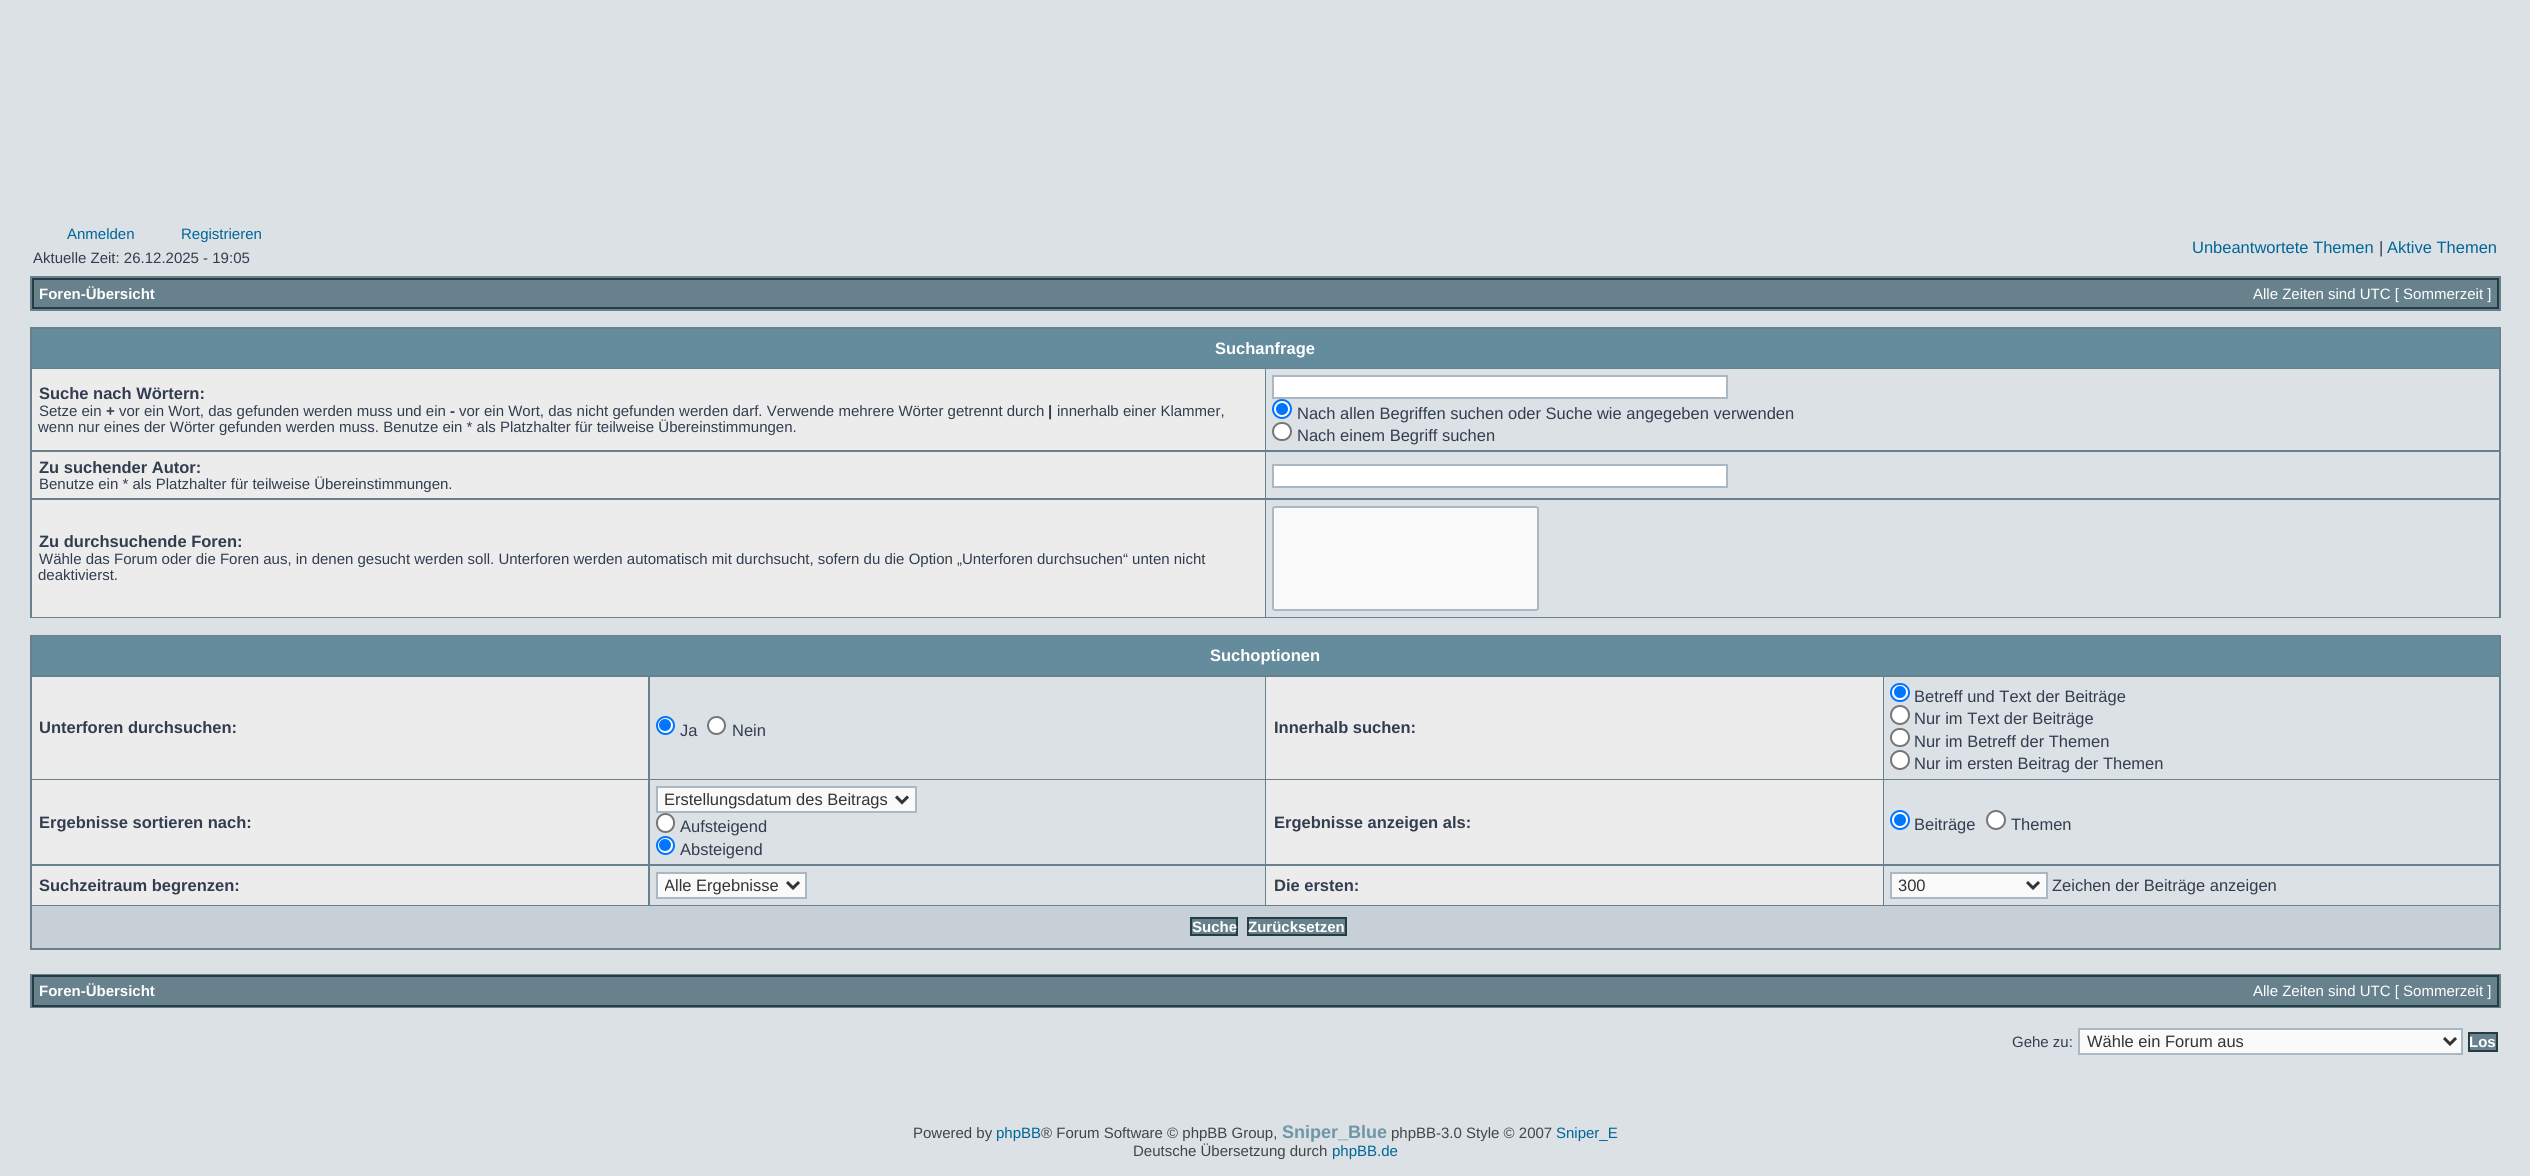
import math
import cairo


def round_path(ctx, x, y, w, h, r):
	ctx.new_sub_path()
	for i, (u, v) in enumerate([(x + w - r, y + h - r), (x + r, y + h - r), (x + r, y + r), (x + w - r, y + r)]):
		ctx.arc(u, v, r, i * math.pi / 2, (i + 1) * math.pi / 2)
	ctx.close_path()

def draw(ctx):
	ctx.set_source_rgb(0.863, 0.882, 0.898)
	ctx.paint()
	ctx.select_font_face('Liberation Sans')
	ctx.set_font_size(15)
	ctx.set_source_rgb(0, 0.396, 0.592)
	ctx.move_to(67, 239)
	ctx.show_text('Anmelden')
	ctx.move_to(181, 239)
	ctx.show_text('Registrieren')
	ctx.set_source_rgb(0.196, 0.239, 0.31)
	ctx.move_to(33, 263)
	ctx.show_text('Aktuelle Zeit: 26.12.2025 - 19:05')
	ctx.set_font_size(16.5)
	ctx.set_source_rgb(0, 0.396, 0.592)
	ctx.move_to(2192, 253)
	ctx.show_text('Unbeantwortete Themen')
	ctx.set_source_rgb(0.196, 0.239, 0.31)
	ctx.move_to(2379, 253)
	ctx.show_text('|')
	ctx.set_source_rgb(0, 0.396, 0.592)
	ctx.move_to(2387, 253)
	ctx.show_text('Aktive Themen')
	ctx.set_source_rgb(0.404, 0.51, 0.553)
	ctx.rectangle(30, 276, 2471, 35)
	ctx.fill()
	ctx.rectangle(33, 279, 2465, 29)
	ctx.set_source_rgb(0.141, 0.235, 0.259)
	ctx.stroke()
	ctx.select_font_face('Liberation Sans', cairo.FONT_SLANT_NORMAL, cairo.FONT_WEIGHT_BOLD)
	ctx.set_font_size(15)
	ctx.set_source_rgb(1, 1, 1)
	ctx.move_to(39, 299)
	ctx.show_text('Foren-Übersicht')
	ctx.select_font_face('Liberation Sans')
	ctx.move_to(2253, 299)
	ctx.show_text('Alle Zeiten sind UTC [ Sommerzeit ]')
	ctx.set_source_rgb(0.404, 0.51, 0.553)
	ctx.rectangle(30, 327, 2471, 291)
	ctx.fill()
	ctx.set_source_rgb(0.392, 0.549, 0.612)
	ctx.rectangle(32, 329, 2467, 39)
	ctx.fill()
	ctx.select_font_face('Liberation Sans', cairo.FONT_SLANT_NORMAL, cairo.FONT_WEIGHT_BOLD)
	ctx.set_font_size(16.5)
	ctx.set_source_rgb(1, 1, 1)
	ctx.move_to(1215, 354)
	ctx.show_text('Suchanfrage')
	ctx.set_source_rgb(0.925, 0.925, 0.925)
	ctx.rectangle(32, 369, 1233, 81)
	ctx.fill()
	ctx.set_source_rgb(0.196, 0.239, 0.31)
	ctx.move_to(39, 399)
	ctx.show_text('Suche nach Wörtern:')
	ctx.select_font_face('Liberation Sans')
	ctx.set_font_size(15)
	ctx.move_to(39, 416)
	ctx.show_text('Setze ein')
	ctx.select_font_face('Liberation Sans', cairo.FONT_SLANT_NORMAL, cairo.FONT_WEIGHT_BOLD)
	ctx.move_to(106, 416)
	ctx.show_text('+')
	ctx.select_font_face('Liberation Sans')
	ctx.move_to(119, 416)
	ctx.show_text('vor ein Wort, das gefunden werden muss und ein')
	ctx.select_font_face('Liberation Sans', cairo.FONT_SLANT_NORMAL, cairo.FONT_WEIGHT_BOLD)
	ctx.move_to(450, 416)
	ctx.show_text('-')
	ctx.select_font_face('Liberation Sans')
	ctx.move_to(459, 416)
	ctx.show_text('vor ein Wort, das nicht gefunden werden darf. Verwende mehrere Wörter getrennt durch')
	ctx.select_font_face('Liberation Sans', cairo.FONT_SLANT_NORMAL, cairo.FONT_WEIGHT_BOLD)
	ctx.move_to(1048, 416)
	ctx.show_text('|')
	ctx.select_font_face('Liberation Sans')
	ctx.move_to(1057, 416)
	ctx.show_text('innerhalb einer Klammer,')
	ctx.move_to(38, 432)
	ctx.show_text('wenn nur eines der Wörter gefunden werden muss. Benutze ein * als Platzhalter für teilweise Übereinstimmungen.')
	ctx.set_source_rgb(0.863, 0.882, 0.898)
	ctx.rectangle(1266, 369, 1233, 81)
	ctx.fill()
	ctx.set_source_rgb(1, 1, 1)
	ctx.rectangle(1273, 376, 454, 22)
	ctx.fill_preserve()
	ctx.set_source_rgb(0.663, 0.722, 0.761)
	ctx.stroke()
	ctx.set_source_rgb(1, 1, 1)
	ctx.arc(1282, 409, 9, 0, 2 * math.pi)
	ctx.fill_preserve()
	ctx.set_source_rgb(0, 0.459, 1)
	ctx.stroke()
	ctx.arc(1282, 409, 6, 0, 2 * math.pi)
	ctx.fill()
	ctx.set_font_size(16.5)
	ctx.set_source_rgb(0.196, 0.239, 0.31)
	ctx.move_to(1297, 419)
	ctx.show_text('Nach allen Begriffen suchen oder Suche wie angegeben verwenden')
	ctx.set_source_rgb(1, 1, 1)
	round_path(ctx, 1273, 423, 18, 17, 8.5)
	ctx.fill_preserve()
	ctx.set_source_rgb(0.463, 0.463, 0.463)
	ctx.stroke()
	ctx.set_source_rgb(0.196, 0.239, 0.31)
	ctx.move_to(1297, 441)
	ctx.show_text('Nach einem Begriff suchen')
	ctx.set_source_rgb(0.925, 0.925, 0.925)
	ctx.rectangle(32, 452, 1233, 46)
	ctx.fill()
	ctx.select_font_face('Liberation Sans', cairo.FONT_SLANT_NORMAL, cairo.FONT_WEIGHT_BOLD)
	ctx.set_source_rgb(0.196, 0.239, 0.31)
	ctx.move_to(39, 473)
	ctx.show_text('Zu suchender Autor:')
	ctx.select_font_face('Liberation Sans')
	ctx.set_font_size(15)
	ctx.move_to(39, 489)
	ctx.show_text('Benutze ein * als Platzhalter für teilweise Übereinstimmungen.')
	ctx.set_source_rgb(0.863, 0.882, 0.898)
	ctx.rectangle(1266, 452, 1233, 46)
	ctx.fill()
	ctx.set_source_rgb(1, 1, 1)
	ctx.rectangle(1273, 465, 454, 22)
	ctx.fill_preserve()
	ctx.set_source_rgb(0.663, 0.722, 0.761)
	ctx.stroke()
	ctx.set_source_rgb(0.925, 0.925, 0.925)
	ctx.rectangle(32, 500, 1233, 117)
	ctx.fill()
	ctx.select_font_face('Liberation Sans', cairo.FONT_SLANT_NORMAL, cairo.FONT_WEIGHT_BOLD)
	ctx.set_font_size(16.5)
	ctx.set_source_rgb(0.196, 0.239, 0.31)
	ctx.move_to(39, 547)
	ctx.show_text('Zu durchsuchende Foren:')
	ctx.select_font_face('Liberation Sans')
	ctx.set_font_size(15)
	ctx.move_to(39, 564)
	ctx.show_text('Wähle das Forum oder die Foren aus, in denen gesucht werden soll. Unterforen werden automatisch mit durchsucht, sofern du die Option „Unterforen durchsuchen“ unten nicht')
	ctx.move_to(38, 580)
	ctx.show_text('deaktivierst.')
	ctx.set_source_rgb(0.863, 0.882, 0.898)
	ctx.rectangle(1266, 500, 1233, 117)
	ctx.fill()
	ctx.set_source_rgb(0.98, 0.98, 0.98)
	round_path(ctx, 1273, 507, 265, 103, 2)
	ctx.fill_preserve()
	ctx.set_source_rgb(0.663, 0.722, 0.761)
	ctx.stroke()
	ctx.set_source_rgb(0.404, 0.51, 0.553)
	ctx.rectangle(30, 635, 2471, 315)
	ctx.fill()
	ctx.set_source_rgb(0.392, 0.549, 0.612)
	ctx.rectangle(32, 636, 2467, 39)
	ctx.fill()
	ctx.select_font_face('Liberation Sans', cairo.FONT_SLANT_NORMAL, cairo.FONT_WEIGHT_BOLD)
	ctx.set_font_size(16.5)
	ctx.set_source_rgb(1, 1, 1)
	ctx.move_to(1210, 661)
	ctx.show_text('Suchoptionen')
	ctx.set_source_rgb(0.925, 0.925, 0.925)
	ctx.rectangle(32, 677, 616, 102)
	ctx.fill()
	ctx.set_source_rgb(0.196, 0.239, 0.31)
	ctx.move_to(39, 733)
	ctx.show_text('Unterforen durchsuchen:')
	ctx.set_source_rgb(0.863, 0.882, 0.898)
	ctx.rectangle(650, 677, 615, 102)
	ctx.fill()
	ctx.set_source_rgb(1, 1, 1)
	ctx.arc(665.5, 725.5, 8.5, 0, 2 * math.pi)
	ctx.fill_preserve()
	ctx.set_source_rgb(0, 0.459, 1)
	ctx.stroke()
	ctx.arc(665, 725, 6, 0, 2 * math.pi)
	ctx.fill()
	ctx.select_font_face('Liberation Sans')
	ctx.set_source_rgb(0.196, 0.239, 0.31)
	ctx.move_to(680, 736)
	ctx.show_text('Ja')
	ctx.set_source_rgb(1, 1, 1)
	ctx.new_path()
	ctx.arc(716.5, 725.5, 8.5, 0, 2 * math.pi)
	ctx.fill_preserve()
	ctx.set_source_rgb(0.463, 0.463, 0.463)
	ctx.stroke()
	ctx.set_source_rgb(0.196, 0.239, 0.31)
	ctx.move_to(732, 736)
	ctx.show_text('Nein')
	ctx.set_source_rgb(0.925, 0.925, 0.925)
	ctx.rectangle(1266, 677, 617, 102)
	ctx.fill()
	ctx.select_font_face('Liberation Sans', cairo.FONT_SLANT_NORMAL, cairo.FONT_WEIGHT_BOLD)
	ctx.set_source_rgb(0.196, 0.239, 0.31)
	ctx.move_to(1274, 733)
	ctx.show_text('Innerhalb suchen:')
	ctx.set_source_rgb(0.863, 0.882, 0.898)
	ctx.rectangle(1884, 677, 615, 102)
	ctx.fill()
	ctx.set_source_rgb(1, 1, 1)
	round_path(ctx, 1891, 684, 18, 17, 8.5)
	ctx.fill_preserve()
	ctx.set_source_rgb(0, 0.459, 1)
	ctx.stroke()
	ctx.arc(1900, 692, 6, 0, 2 * math.pi)
	ctx.fill()
	ctx.select_font_face('Liberation Sans')
	ctx.set_source_rgb(0.196, 0.239, 0.31)
	ctx.move_to(1914, 702)
	ctx.show_text('Betreff und Text der Beiträge')
	ctx.set_source_rgb(1, 1, 1)
	ctx.new_path()
	ctx.arc(1900, 715, 9, 0, 2 * math.pi)
	ctx.fill_preserve()
	ctx.set_source_rgb(0.463, 0.463, 0.463)
	ctx.stroke()
	ctx.set_source_rgb(0.196, 0.239, 0.31)
	ctx.move_to(1914, 724)
	ctx.show_text('Nur im Text der Beiträge')
	ctx.set_source_rgb(1, 1, 1)
	round_path(ctx, 1891, 729, 18, 17, 8.5)
	ctx.fill_preserve()
	ctx.set_source_rgb(0.463, 0.463, 0.463)
	ctx.stroke()
	ctx.set_source_rgb(0.196, 0.239, 0.31)
	ctx.move_to(1914, 747)
	ctx.show_text('Nur im Betreff der Themen')
	ctx.set_source_rgb(1, 1, 1)
	ctx.new_path()
	ctx.arc(1900, 760, 9, 0, 2 * math.pi)
	ctx.fill_preserve()
	ctx.set_source_rgb(0.463, 0.463, 0.463)
	ctx.stroke()
	ctx.set_source_rgb(0.196, 0.239, 0.31)
	ctx.move_to(1914, 769)
	ctx.show_text('Nur im ersten Beitrag der Themen')
	ctx.set_source_rgb(0.925, 0.925, 0.925)
	ctx.rectangle(32, 780, 616, 84)
	ctx.fill()
	ctx.select_font_face('Liberation Sans', cairo.FONT_SLANT_NORMAL, cairo.FONT_WEIGHT_BOLD)
	ctx.set_source_rgb(0.196, 0.239, 0.31)
	ctx.move_to(39, 828)
	ctx.show_text('Ergebnisse sortieren nach:')
	ctx.set_source_rgb(0.863, 0.882, 0.898)
	ctx.rectangle(650, 780, 615, 84)
	ctx.fill()
	ctx.set_source_rgb(0.98, 0.98, 0.98)
	ctx.rectangle(657, 787, 259, 25)
	ctx.fill_preserve()
	ctx.set_source_rgb(0.663, 0.722, 0.761)
	ctx.stroke()
	ctx.new_path()
	ctx.move_to(896, 796.5)
	ctx.line_to(902, 802.5)
	ctx.line_to(908, 796.5)
	ctx.set_source_rgb(0.2, 0.2, 0.2)
	ctx.set_line_width(3)
	ctx.stroke()
	ctx.select_font_face('Liberation Sans')
	ctx.move_to(664, 805)
	ctx.show_text('Erstellungsdatum des Beitrags')
	ctx.set_source_rgb(1, 1, 1)
	round_path(ctx, 657, 814, 17, 18, 8.5)
	ctx.fill_preserve()
	ctx.set_source_rgb(0.463, 0.463, 0.463)
	ctx.set_line_width(2)
	ctx.stroke()
	ctx.set_source_rgb(0.196, 0.239, 0.31)
	ctx.move_to(680, 832)
	ctx.show_text('Aufsteigend')
	ctx.set_source_rgb(1, 1, 1)
	ctx.new_path()
	ctx.arc(665.5, 845.5, 8.5, 0, 2 * math.pi)
	ctx.fill_preserve()
	ctx.set_source_rgb(0, 0.459, 1)
	ctx.stroke()
	ctx.arc(665, 845, 6, 0, 2 * math.pi)
	ctx.fill()
	ctx.set_source_rgb(0.196, 0.239, 0.31)
	ctx.move_to(680, 855)
	ctx.show_text('Absteigend')
	ctx.set_source_rgb(0.925, 0.925, 0.925)
	ctx.rectangle(1266, 780, 617, 84)
	ctx.fill()
	ctx.select_font_face('Liberation Sans', cairo.FONT_SLANT_NORMAL, cairo.FONT_WEIGHT_BOLD)
	ctx.set_source_rgb(0.196, 0.239, 0.31)
	ctx.move_to(1274, 828)
	ctx.show_text('Ergebnisse anzeigen als:')
	ctx.set_source_rgb(0.863, 0.882, 0.898)
	ctx.rectangle(1884, 780, 615, 84)
	ctx.fill()
	ctx.set_source_rgb(1, 1, 1)
	ctx.arc(1900, 820, 9, 0, 2 * math.pi)
	ctx.fill_preserve()
	ctx.set_source_rgb(0, 0.459, 1)
	ctx.stroke()
	ctx.arc(1900, 820, 6, 0, 2 * math.pi)
	ctx.fill()
	ctx.select_font_face('Liberation Sans')
	ctx.set_source_rgb(0.196, 0.239, 0.31)
	ctx.move_to(1914, 830)
	ctx.show_text('Beiträge')
	ctx.set_source_rgb(1, 1, 1)
	ctx.new_path()
	ctx.arc(1996, 820, 9, 0, 2 * math.pi)
	ctx.fill_preserve()
	ctx.set_source_rgb(0.463, 0.463, 0.463)
	ctx.stroke()
	ctx.set_source_rgb(0.196, 0.239, 0.31)
	ctx.move_to(2011, 830)
	ctx.show_text('Themen')
	ctx.set_source_rgb(0.925, 0.925, 0.925)
	ctx.rectangle(32, 866, 616, 39)
	ctx.fill()
	ctx.select_font_face('Liberation Sans', cairo.FONT_SLANT_NORMAL, cairo.FONT_WEIGHT_BOLD)
	ctx.set_source_rgb(0.196, 0.239, 0.31)
	ctx.move_to(39, 891)
	ctx.show_text('Suchzeitraum begrenzen:')
	ctx.set_source_rgb(0.863, 0.882, 0.898)
	ctx.rectangle(650, 866, 615, 39)
	ctx.fill()
	ctx.set_source_rgb(0.98, 0.98, 0.98)
	ctx.rectangle(657, 873, 149, 25)
	ctx.fill_preserve()
	ctx.set_source_rgb(0.663, 0.722, 0.761)
	ctx.stroke()
	ctx.new_path()
	ctx.move_to(787, 882)
	ctx.line_to(793, 888)
	ctx.line_to(799, 882)
	ctx.set_source_rgb(0.2, 0.2, 0.2)
	ctx.set_line_width(3)
	ctx.stroke()
	ctx.save()
	ctx.rectangle(665, 875, 115, 21)
	ctx.clip()
	ctx.select_font_face('Liberation Sans')
	ctx.move_to(664, 891)
	ctx.show_text('Alle Ergebnisse')
	ctx.restore()
	ctx.set_source_rgb(0.925, 0.925, 0.925)
	ctx.rectangle(1266, 866, 617, 39)
	ctx.fill()
	ctx.set_source_rgb(0.196, 0.239, 0.31)
	ctx.move_to(1274, 891)
	ctx.show_text('Die ersten:')
	ctx.set_source_rgb(0.863, 0.882, 0.898)
	ctx.rectangle(1884, 866, 615, 39)
	ctx.fill()
	ctx.set_source_rgb(0.98, 0.98, 0.98)
	ctx.rectangle(1891, 873, 156, 25)
	ctx.fill_preserve()
	ctx.set_source_rgb(0.663, 0.722, 0.761)
	ctx.set_line_width(2)
	ctx.stroke()
	ctx.new_path()
	ctx.move_to(2027, 882)
	ctx.line_to(2033, 888)
	ctx.line_to(2039, 882)
	ctx.set_source_rgb(0.2, 0.2, 0.2)
	ctx.set_line_width(3)
	ctx.stroke()
	ctx.select_font_face('Liberation Sans')
	ctx.move_to(1898, 891)
	ctx.show_text('300')
	ctx.set_source_rgb(0.196, 0.239, 0.31)
	ctx.move_to(2052, 891)
	ctx.show_text('Zeichen der Beiträge anzeigen')
	ctx.set_source_rgb(0.78, 0.816, 0.843)
	ctx.rectangle(32, 906, 2467, 42)
	ctx.fill()
	ctx.set_source_rgb(0.404, 0.51, 0.553)
	ctx.rectangle(1191, 918, 46, 17)
	ctx.fill_preserve()
	ctx.set_source_rgb(0.141, 0.235, 0.259)
	ctx.set_line_width(2)
	ctx.stroke()
	ctx.select_font_face('Liberation Sans', cairo.FONT_SLANT_NORMAL, cairo.FONT_WEIGHT_BOLD)
	ctx.set_font_size(15)
	ctx.set_source_rgb(1, 1, 1)
	ctx.move_to(1192, 932)
	ctx.show_text('Suche')
	ctx.set_source_rgb(0.404, 0.51, 0.553)
	ctx.rectangle(1248, 918, 98, 17)
	ctx.fill_preserve()
	ctx.set_source_rgb(0.141, 0.235, 0.259)
	ctx.stroke()
	ctx.set_source_rgb(1, 1, 1)
	ctx.move_to(1248, 932)
	ctx.show_text('Zurücksetzen')
	ctx.set_source_rgb(0.404, 0.51, 0.553)
	ctx.rectangle(30, 974, 2471, 34)
	ctx.fill()
	ctx.rectangle(33, 976, 2465, 30)
	ctx.set_source_rgb(0.141, 0.235, 0.259)
	ctx.stroke()
	ctx.set_source_rgb(1, 1, 1)
	ctx.move_to(39, 996)
	ctx.show_text('Foren-Übersicht')
	ctx.select_font_face('Liberation Sans')
	ctx.move_to(2253, 996)
	ctx.show_text('Alle Zeiten sind UTC [ Sommerzeit ]')
	ctx.set_source_rgb(0.196, 0.239, 0.31)
	ctx.move_to(2012, 1047)
	ctx.show_text('Gehe zu:')
	ctx.set_source_rgb(0.98, 0.98, 0.98)
	ctx.rectangle(2079, 1029, 383, 25)
	ctx.fill_preserve()
	ctx.set_source_rgb(0.663, 0.722, 0.761)
	ctx.stroke()
	ctx.new_path()
	ctx.move_to(2444, 1038)
	ctx.line_to(2450, 1044)
	ctx.line_to(2456, 1038)
	ctx.set_source_rgb(0.2, 0.2, 0.2)
	ctx.set_line_width(3)
	ctx.stroke()
	ctx.set_font_size(16.5)
	ctx.move_to(2087, 1047)
	ctx.show_text('Wähle ein Forum aus')
	ctx.set_source_rgb(0.404, 0.51, 0.553)
	ctx.rectangle(2469, 1033, 28, 18)
	ctx.fill_preserve()
	ctx.set_source_rgb(0.141, 0.235, 0.259)
	ctx.set_line_width(2)
	ctx.stroke()
	ctx.select_font_face('Liberation Sans', cairo.FONT_SLANT_NORMAL, cairo.FONT_WEIGHT_BOLD)
	ctx.set_font_size(15)
	ctx.set_source_rgb(1, 1, 1)
	ctx.move_to(2469, 1047)
	ctx.show_text('Los')
	ctx.select_font_face('Liberation Sans')
	ctx.set_source_rgb(0.267, 0.267, 0.267)
	ctx.move_to(913, 1138)
	ctx.show_text('Powered by')
	ctx.set_source_rgb(0, 0.396, 0.592)
	ctx.move_to(996, 1138)
	ctx.show_text('phpBB')
	ctx.set_source_rgb(0.267, 0.267, 0.267)
	ctx.move_to(1041, 1138)
	ctx.show_text('® Forum Software © phpBB Group,')
	ctx.select_font_face('Liberation Sans', cairo.FONT_SLANT_NORMAL, cairo.FONT_WEIGHT_BOLD)
	ctx.set_font_size(18)
	ctx.set_source_rgb(0.427, 0.588, 0.655)
	ctx.move_to(1282, 1138)
	ctx.show_text('Sniper_Blue')
	ctx.select_font_face('Liberation Sans')
	ctx.set_font_size(15)
	ctx.set_source_rgb(0.267, 0.267, 0.267)
	ctx.move_to(1391, 1138)
	ctx.show_text('phpBB-3.0 Style © 2007')
	ctx.set_source_rgb(0, 0.396, 0.592)
	ctx.move_to(1556, 1138)
	ctx.show_text('Sniper_E')
	ctx.set_source_rgb(0.267, 0.267, 0.267)
	ctx.move_to(1133, 1156)
	ctx.show_text('Deutsche Übersetzung durch')
	ctx.set_source_rgb(0, 0.396, 0.592)
	ctx.move_to(1332, 1156)
	ctx.show_text('phpBB.de')


surface = cairo.ImageSurface(cairo.FORMAT_RGB24, 2530, 1176)
ctx = cairo.Context(surface)
options = cairo.FontOptions()
options.set_hint_metrics(cairo.HINT_METRICS_OFF)
options.set_hint_style(cairo.HINT_STYLE_NONE)
ctx.set_font_options(options)
ctx.set_miter_limit(4)
draw(ctx)
surface.write_to_png('image.png')
